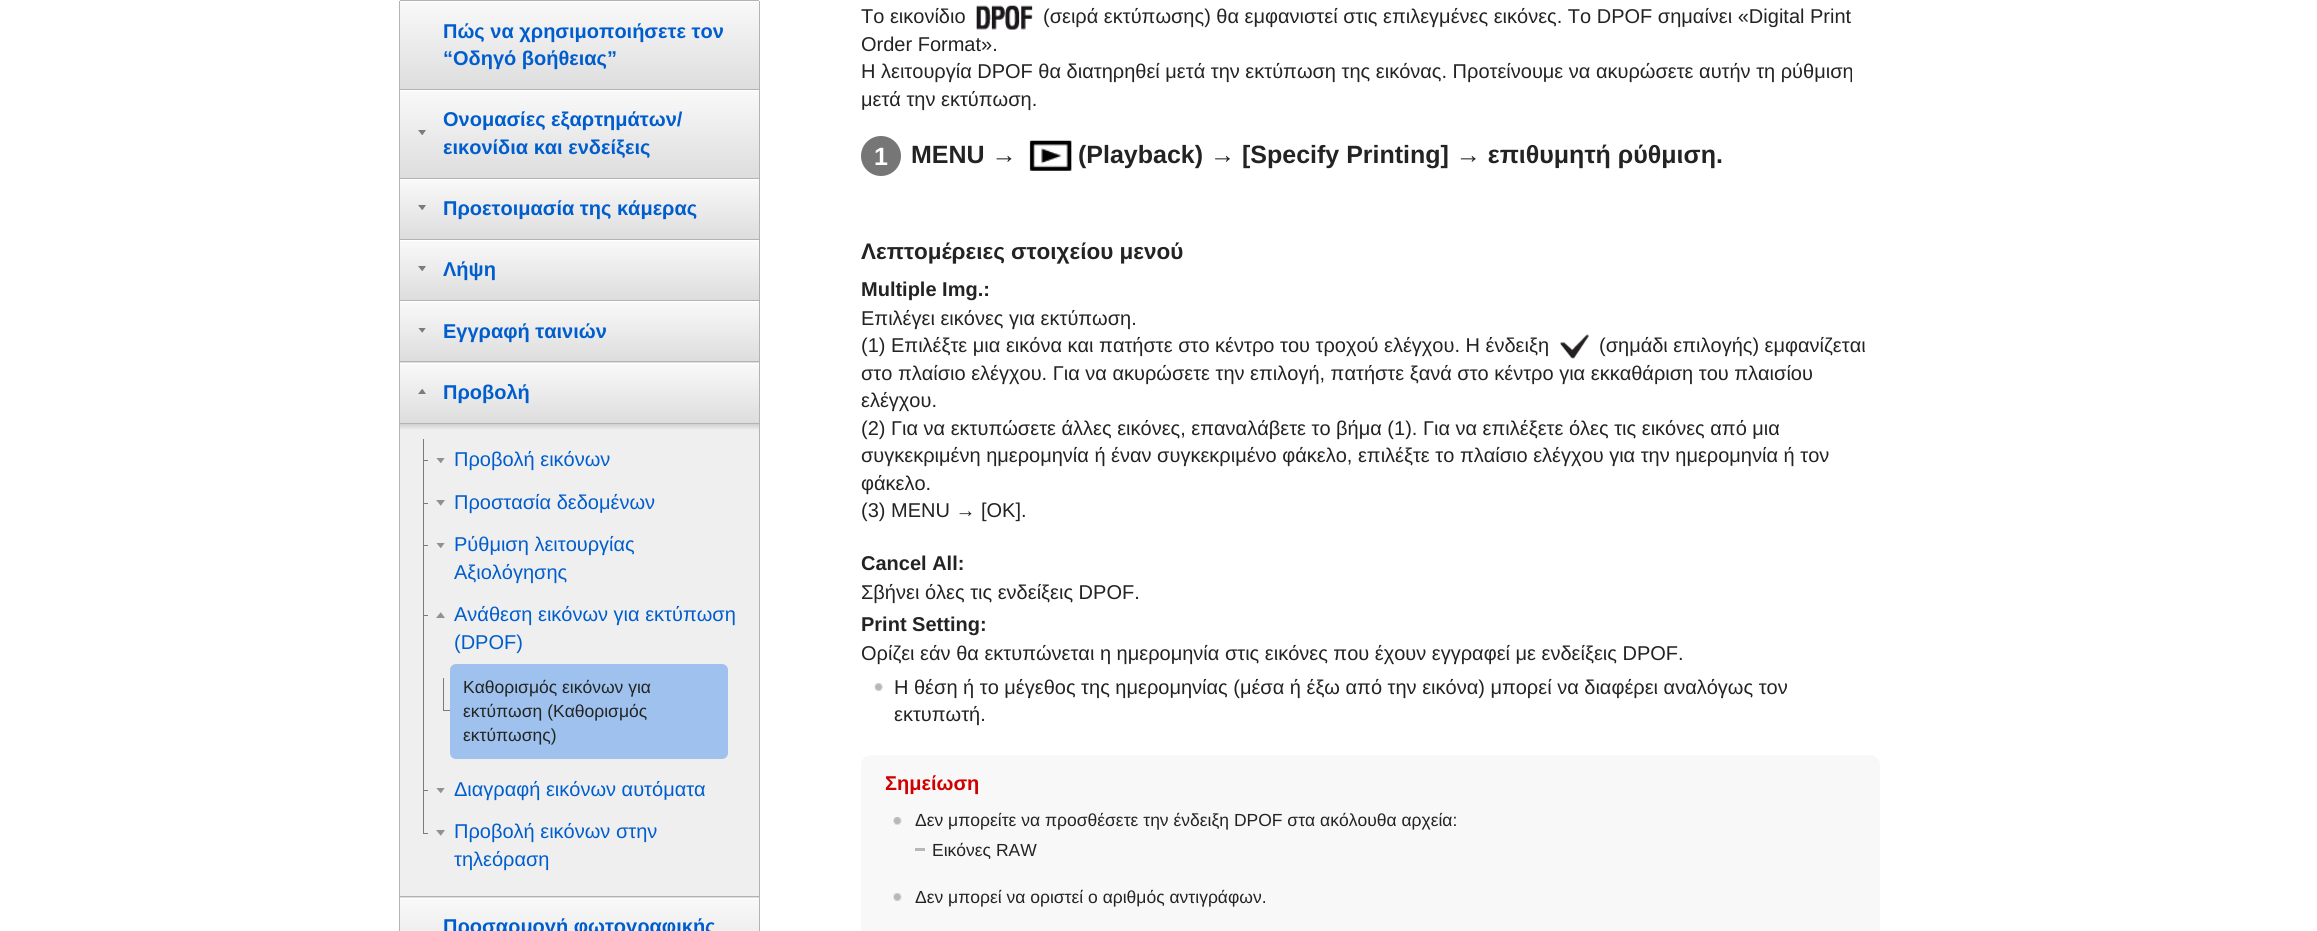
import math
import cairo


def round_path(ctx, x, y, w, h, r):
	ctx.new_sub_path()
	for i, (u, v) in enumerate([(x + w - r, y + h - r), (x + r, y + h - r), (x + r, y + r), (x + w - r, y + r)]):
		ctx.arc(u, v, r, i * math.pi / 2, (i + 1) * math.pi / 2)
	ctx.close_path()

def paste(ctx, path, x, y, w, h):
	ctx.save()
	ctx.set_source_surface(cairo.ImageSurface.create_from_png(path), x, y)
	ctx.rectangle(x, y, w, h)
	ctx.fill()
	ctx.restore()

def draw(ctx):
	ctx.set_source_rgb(1, 1, 1)
	ctx.paint()
	gradient = cairo.LinearGradient(579, 1.2, 579, 89)
	gradient.add_color_stop_rgba(0, 0.996, 0.996, 0.996, 1)
	gradient.add_color_stop_rgba(0.01, 0.996, 0.996, 0.996, 1)
	gradient.add_color_stop_rgba(0.01, 0.976, 0.976, 0.976, 1)
	gradient.add_color_stop_rgba(1, 0.867, 0.867, 0.867, 1)
	ctx.set_source(gradient)
	ctx.rectangle(400, 2, 359, 87)
	ctx.fill()
	ctx.set_source_rgb(0.702, 0.702, 0.702)
	ctx.rectangle(400, 0, 359, 1)
	ctx.rectangle(759, 1, 1, 88)
	ctx.rectangle(399, 1, 1, 88)
	ctx.fill()
	ctx.select_font_face('Liberation Sans', cairo.FONT_SLANT_NORMAL, cairo.FONT_WEIGHT_BOLD)
	ctx.set_font_size(20)
	ctx.set_source_rgb(0, 0.365, 0.804)
	ctx.move_to(443, 38)
	ctx.show_text('Πώς να χρησιμοποιήσετε τον')
	ctx.move_to(443, 65)
	ctx.show_text('“Οδηγό βοήθειας”')
	gradient = cairo.LinearGradient(579, 90, 579, 178)
	gradient.add_color_stop_rgba(0, 0.996, 0.996, 0.996, 1)
	gradient.add_color_stop_rgba(0.01, 0.996, 0.996, 0.996, 1)
	gradient.add_color_stop_rgba(0.01, 0.976, 0.976, 0.976, 1)
	gradient.add_color_stop_rgba(1, 0.867, 0.867, 0.867, 1)
	ctx.set_source(gradient)
	ctx.rectangle(400, 91, 359, 87)
	ctx.fill()
	ctx.set_source_rgb(0.702, 0.702, 0.702)
	ctx.rectangle(399, 89, 361, 1)
	ctx.rectangle(759, 89, 1, 89)
	ctx.rectangle(399, 89, 1, 89)
	ctx.fill()
	ctx.set_source_rgb(0.482, 0.482, 0.482)
	ctx.new_path()
	ctx.move_to(418, 130)
	ctx.line_to(422, 135)
	ctx.line_to(422.5, 135)
	ctx.line_to(426, 130)
	ctx.close_path()
	ctx.fill()
	ctx.set_source_rgb(0, 0.365, 0.804)
	ctx.move_to(443, 126)
	ctx.show_text('Ονομασίες εξαρτημάτων/')
	ctx.move_to(443, 154)
	ctx.show_text('εικονίδια και ενδείξεις')
	gradient = cairo.LinearGradient(579, 179, 579, 239)
	gradient.add_color_stop_rgba(0, 0.996, 0.996, 0.996, 1)
	gradient.add_color_stop_rgba(0.02, 0.996, 0.996, 0.996, 1)
	gradient.add_color_stop_rgba(0.02, 0.976, 0.976, 0.976, 1)
	gradient.add_color_stop_rgba(1, 0.867, 0.867, 0.867, 1)
	ctx.set_source(gradient)
	ctx.rectangle(400, 180, 359, 59)
	ctx.fill()
	ctx.set_source_rgb(0.702, 0.702, 0.702)
	ctx.rectangle(399, 178, 361, 1)
	ctx.rectangle(759, 178, 1, 61)
	ctx.rectangle(399, 178, 1, 61)
	ctx.fill()
	ctx.set_source_rgb(0.482, 0.482, 0.482)
	ctx.new_path()
	ctx.move_to(418, 205)
	ctx.line_to(422, 210)
	ctx.line_to(422.5, 210)
	ctx.line_to(426, 205)
	ctx.close_path()
	ctx.fill()
	ctx.set_source_rgb(0, 0.365, 0.804)
	ctx.move_to(443, 215)
	ctx.show_text('Προετοιμασία της κάμερας')
	gradient = cairo.LinearGradient(579, 240, 579, 300)
	gradient.add_color_stop_rgba(0, 0.996, 0.996, 0.996, 1)
	gradient.add_color_stop_rgba(0.02, 0.996, 0.996, 0.996, 1)
	gradient.add_color_stop_rgba(0.02, 0.976, 0.976, 0.976, 1)
	gradient.add_color_stop_rgba(1, 0.867, 0.867, 0.867, 1)
	ctx.set_source(gradient)
	ctx.rectangle(400, 241, 359, 59)
	ctx.fill()
	ctx.set_source_rgb(0.702, 0.702, 0.702)
	ctx.rectangle(399, 239, 361, 1)
	ctx.rectangle(759, 239, 1, 61)
	ctx.rectangle(399, 239, 1, 61)
	ctx.fill()
	ctx.set_source_rgb(0.482, 0.482, 0.482)
	ctx.new_path()
	ctx.move_to(418, 266)
	ctx.line_to(422, 271)
	ctx.line_to(422.5, 271)
	ctx.line_to(426, 266)
	ctx.close_path()
	ctx.fill()
	ctx.set_source_rgb(0, 0.365, 0.804)
	ctx.move_to(443, 276)
	ctx.show_text('Λήψη')
	gradient = cairo.LinearGradient(579, 301, 579, 361)
	gradient.add_color_stop_rgba(0, 0.996, 0.996, 0.996, 1)
	gradient.add_color_stop_rgba(0.02, 0.996, 0.996, 0.996, 1)
	gradient.add_color_stop_rgba(0.02, 0.976, 0.976, 0.976, 1)
	gradient.add_color_stop_rgba(1, 0.867, 0.867, 0.867, 1)
	ctx.set_source(gradient)
	ctx.rectangle(400, 302, 359, 59)
	ctx.fill()
	ctx.set_source_rgb(0.702, 0.702, 0.702)
	ctx.rectangle(399, 300, 361, 1)
	ctx.rectangle(759, 300, 1, 61)
	ctx.rectangle(399, 300, 1, 61)
	ctx.fill()
	ctx.save()
	ctx.rectangle(418, 328, 8, 5)
	ctx.clip()
	ctx.set_source_rgb(0.482, 0.482, 0.482)
	ctx.new_path()
	ctx.move_to(418, 327.5)
	ctx.line_to(422, 332.5)
	ctx.line_to(422.5, 332.5)
	ctx.line_to(426, 327.5)
	ctx.close_path()
	ctx.fill()
	ctx.restore()
	ctx.set_source_rgb(0, 0.365, 0.804)
	ctx.move_to(443, 338)
	ctx.show_text('Εγγραφή ταινιών')
	gradient = cairo.LinearGradient(579, 302, 579, 363)
	gradient.add_color_stop_rgba(0, 0.996, 0.996, 0.996, 1)
	gradient.add_color_stop_rgba(0.02, 0.996, 0.996, 0.996, 1)
	gradient.add_color_stop_rgba(0.02, 0.976, 0.976, 0.976, 1)
	gradient.add_color_stop_rgba(1, 0.867, 0.867, 0.867, 1)
	ctx.set_source(gradient)
	ctx.rectangle(399, 362, 361, 1)
	ctx.fill()
	gradient = cairo.LinearGradient(579, 363, 579, 423)
	gradient.add_color_stop_rgba(0, 0.996, 0.996, 0.996, 1)
	gradient.add_color_stop_rgba(0.02, 0.996, 0.996, 0.996, 1)
	gradient.add_color_stop_rgba(0.02, 0.976, 0.976, 0.976, 1)
	gradient.add_color_stop_rgba(1, 0.867, 0.867, 0.867, 1)
	ctx.set_source(gradient)
	ctx.rectangle(400, 364, 359, 59)
	ctx.fill()
	ctx.set_source_rgb(0.702, 0.702, 0.702)
	ctx.rectangle(399, 361, 361, 1)
	ctx.rectangle(759, 361, 1, 62)
	ctx.rectangle(399, 361, 1, 62)
	ctx.fill()
	ctx.set_source_rgb(0.482, 0.482, 0.482)
	ctx.new_path()
	ctx.move_to(418, 394)
	ctx.line_to(422, 389)
	ctx.line_to(422.5, 389)
	ctx.line_to(426, 394)
	ctx.close_path()
	ctx.fill()
	ctx.set_source_rgb(0, 0.365, 0.804)
	ctx.move_to(443, 399)
	ctx.show_text('Προβολή')
	ctx.set_source_rgb(0.937, 0.937, 0.937)
	ctx.rectangle(400, 430, 359, 466)
	ctx.fill()
	ctx.set_source_rgb(0.702, 0.702, 0.702)
	ctx.rectangle(399, 423, 361, 1)
	ctx.rectangle(759, 423, 1, 473)
	ctx.rectangle(399, 423, 1, 473)
	ctx.fill()
	gradient = cairo.LinearGradient(579, 424, 579, 430)
	gradient.add_color_stop_rgba(0, 0.816, 0.816, 0.816, 1)
	gradient.add_color_stop_rgba(1, 0.937, 0.937, 0.937, 1)
	ctx.set_source(gradient)
	ctx.rectangle(400, 424, 359, 6)
	ctx.fill()
	ctx.set_source_rgb(0.482, 0.482, 0.482)
	ctx.rectangle(423, 439, 1, 395)
	ctx.fill()
	ctx.rectangle(424, 460, 4, 1)
	ctx.fill()
	ctx.save()
	ctx.rectangle(436, 458, 9, 6)
	ctx.clip()
	ctx.set_source_rgb(0.569, 0.569, 0.569)
	ctx.new_path()
	ctx.move_to(436, 457.5)
	ctx.line_to(440.5, 463)
	ctx.line_to(441, 463)
	ctx.line_to(445, 457.5)
	ctx.close_path()
	ctx.fill()
	ctx.restore()
	ctx.select_font_face('Liberation Sans')
	ctx.set_source_rgb(0, 0.365, 0.804)
	ctx.move_to(454, 466)
	ctx.show_text('Προβολή εικόνων')
	ctx.set_source_rgb(0.482, 0.482, 0.482)
	ctx.rectangle(424, 503, 4, 1)
	ctx.fill()
	ctx.set_source_rgb(0.569, 0.569, 0.569)
	ctx.new_path()
	ctx.move_to(436, 500)
	ctx.line_to(440.5, 505.5)
	ctx.line_to(441, 505.5)
	ctx.line_to(445, 500)
	ctx.close_path()
	ctx.fill()
	ctx.set_source_rgb(0, 0.365, 0.804)
	ctx.move_to(454, 509)
	ctx.show_text('Προστασία δεδομένων')
	ctx.set_source_rgb(0.482, 0.482, 0.482)
	ctx.rectangle(424, 545, 4, 1)
	ctx.fill()
	ctx.save()
	ctx.rectangle(436, 543, 9, 6)
	ctx.clip()
	ctx.set_source_rgb(0.569, 0.569, 0.569)
	ctx.new_path()
	ctx.move_to(436, 542.5)
	ctx.line_to(440.5, 548)
	ctx.line_to(441, 548)
	ctx.line_to(445, 542.5)
	ctx.close_path()
	ctx.fill()
	ctx.restore()
	ctx.set_source_rgb(0, 0.365, 0.804)
	ctx.move_to(454, 551)
	ctx.show_text('Ρύθμιση λειτουργίας')
	ctx.move_to(454, 579)
	ctx.show_text('Αξιολόγησης')
	ctx.set_source_rgb(0.482, 0.482, 0.482)
	ctx.rectangle(424, 615, 4, 1)
	ctx.fill()
	ctx.set_source_rgb(0.569, 0.569, 0.569)
	ctx.new_path()
	ctx.move_to(436, 618)
	ctx.line_to(440.5, 612.5)
	ctx.line_to(441, 612.5)
	ctx.line_to(445, 618)
	ctx.close_path()
	ctx.fill()
	ctx.set_source_rgb(0, 0.365, 0.804)
	ctx.move_to(454, 621)
	ctx.show_text('Ανάθεση εικόνων για εκτύπωση')
	ctx.move_to(454, 649)
	ctx.show_text('(DPOF)')
	ctx.set_source_rgb(0.482, 0.482, 0.482)
	ctx.rectangle(443, 678, 1, 33)
	ctx.fill()
	ctx.set_source_rgb(0.62, 0.761, 0.929)
	round_path(ctx, 450, 664, 278, 95, 6)
	ctx.fill()
	ctx.set_source_rgb(0.482, 0.482, 0.482)
	ctx.rectangle(443, 710, 7, 1)
	ctx.fill()
	ctx.set_font_size(17.5)
	ctx.set_source_rgb(0.137, 0.137, 0.137)
	for x, y, s in [
		(463, 693, 'Καθορισμός εικόνων για'),
		(463, 717, 'εκτύπωση (Καθορισμός'),
		(463, 741, 'εκτύπωσης)'),
	]:
		ctx.move_to(x, y)
		ctx.show_text(s)
	ctx.set_source_rgb(0.482, 0.482, 0.482)
	ctx.rectangle(424, 790, 4, 1)
	ctx.fill()
	ctx.save()
	ctx.rectangle(436, 788, 9, 5)
	ctx.clip()
	ctx.set_source_rgb(0.569, 0.569, 0.569)
	ctx.new_path()
	ctx.move_to(436, 787.5)
	ctx.line_to(440.5, 793)
	ctx.line_to(441, 793)
	ctx.line_to(445, 787.5)
	ctx.close_path()
	ctx.fill()
	ctx.restore()
	ctx.set_font_size(20)
	ctx.set_source_rgb(0, 0.365, 0.804)
	ctx.move_to(454, 796)
	ctx.show_text('Διαγραφή εικόνων αυτόματα')
	ctx.set_source_rgb(0.482, 0.482, 0.482)
	ctx.rectangle(424, 833, 4, 1)
	ctx.fill()
	ctx.set_source_rgb(0.569, 0.569, 0.569)
	ctx.new_path()
	ctx.move_to(436, 830)
	ctx.line_to(440.5, 835.5)
	ctx.line_to(441, 835.5)
	ctx.line_to(445, 830)
	ctx.close_path()
	ctx.fill()
	ctx.set_source_rgb(0, 0.365, 0.804)
	ctx.move_to(454, 838)
	ctx.show_text('Προβολή εικόνων στην')
	ctx.move_to(454, 866)
	ctx.show_text('τηλεόραση')
	gradient = cairo.LinearGradient(579, 810, 579, 898)
	gradient.add_color_stop_rgba(0, 0.996, 0.996, 0.996, 1)
	gradient.add_color_stop_rgba(0.01, 0.996, 0.996, 0.996, 1)
	gradient.add_color_stop_rgba(0.01, 0.976, 0.976, 0.976, 1)
	gradient.add_color_stop_rgba(1, 0.867, 0.867, 0.867, 1)
	ctx.set_source(gradient)
	ctx.rectangle(399, 897, 361, 1)
	ctx.fill()
	gradient = cairo.LinearGradient(579, 898, 579, 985)
	gradient.add_color_stop_rgba(0, 0.996, 0.996, 0.996, 1)
	gradient.add_color_stop_rgba(0.01, 0.996, 0.996, 0.996, 1)
	gradient.add_color_stop_rgba(0.01, 0.976, 0.976, 0.976, 1)
	gradient.add_color_stop_rgba(1, 0.867, 0.867, 0.867, 1)
	ctx.set_source(gradient)
	ctx.rectangle(400, 899, 359, 32)
	ctx.fill()
	ctx.set_source_rgb(0.702, 0.702, 0.702)
	ctx.rectangle(399, 896, 361, 1)
	ctx.rectangle(759, 896, 1, 35)
	ctx.rectangle(399, 896, 1, 35)
	ctx.fill()
	ctx.select_font_face('Liberation Sans', cairo.FONT_SLANT_NORMAL, cairo.FONT_WEIGHT_BOLD)
	ctx.set_source_rgb(0, 0.365, 0.804)
	ctx.move_to(443, 933)
	ctx.show_text('Προσαρμογή φωτογραφικής')
	ctx.select_font_face('Liberation Sans')
	ctx.set_source_rgb(0.137, 0.137, 0.137)
	ctx.move_to(861, 23)
	ctx.show_text('Το εικονίδιο')
	paste(ctx, 'media/1.png', 976, 5, 57, 25)
	for x, y, s in [
		(1043, 23, '(σειρά εκτύπωσης) θα εμφανιστεί στις επιλεγμένες εικόνες. Το DPOF σημαίνει «Digital Print'),
		(861, 51, 'Order Format».'),
		(861, 78, 'Η λειτουργία DPOF θα διατηρηθεί μετά την εκτύπωση της εικόνας. Προτείνουμε να ακυρώσετε αυτήν τη ρύθμιση'),
		(861, 106, 'μετά την εκτύπωση.'),
	]:
		ctx.move_to(x, y)
		ctx.show_text(s)
	ctx.set_source_rgb(0.463, 0.463, 0.463)
	ctx.new_path()
	ctx.arc(881, 156, 20, 0, 2 * math.pi)
	ctx.fill()
	ctx.select_font_face('Liberation Sans', cairo.FONT_SLANT_NORMAL, cairo.FONT_WEIGHT_BOLD)
	ctx.set_font_size(25)
	ctx.set_source_rgb(1, 1, 1)
	ctx.move_to(874, 165)
	ctx.show_text('1')
	ctx.set_source_rgb(0.137, 0.137, 0.137)
	ctx.move_to(911, 163)
	ctx.show_text('MENU →')
	paste(ctx, 'media/2.png', 1029, 140, 43, 31)
	ctx.move_to(1078, 163)
	ctx.show_text('(Playback) → [Specify Printing] → επιθυμητή ρύθμιση.')
	ctx.set_font_size(22.5)
	ctx.move_to(861, 259)
	ctx.show_text('Λεπτομέρειες στοιχείου μενού')
	ctx.set_font_size(20)
	ctx.move_to(861, 296)
	ctx.show_text('Multiple Img.:')
	ctx.select_font_face('Liberation Sans')
	ctx.move_to(861, 325)
	ctx.show_text('Επιλέγει εικόνες για εκτύπωση.')
	ctx.move_to(861, 352)
	ctx.show_text('(1) Επιλέξτε μια εικόνα και πατήστε στο κέντρο του τροχού ελέγχου. Η ένδειξη')
	paste(ctx, 'media/3.png', 1560, 334, 29, 25)
	for x, y, s in [
		(1599, 352, '(σημάδι επιλογής) εμφανίζεται'),
		(861, 380, 'στο πλαίσιο ελέγχου. Για να ακυρώσετε την επιλογή, πατήστε ξανά στο κέντρο για εκκαθάριση του πλαισίου'),
		(861, 407, 'ελέγχου.'),
		(861, 435, '(2) Για να εκτυπώσετε άλλες εικόνες, επαναλάβετε το βήμα (1). Για να επιλέξετε όλες τις εικόνες από μια'),
		(861, 462, 'συγκεκριμένη ημερομηνία ή έναν συγκεκριμένο φάκελο, επιλέξτε το πλαίσιο ελέγχου για την ημερομηνία ή τον'),
		(861, 490, 'φάκελο.'),
		(861, 517, '(3) MENU → [OK].'),
	]:
		ctx.move_to(x, y)
		ctx.show_text(s)
	ctx.select_font_face('Liberation Sans', cairo.FONT_SLANT_NORMAL, cairo.FONT_WEIGHT_BOLD)
	ctx.move_to(861, 570)
	ctx.show_text('Cancel All:')
	ctx.select_font_face('Liberation Sans')
	ctx.move_to(861, 599)
	ctx.show_text('Σβήνει όλες τις ενδείξεις DPOF.')
	ctx.select_font_face('Liberation Sans', cairo.FONT_SLANT_NORMAL, cairo.FONT_WEIGHT_BOLD)
	ctx.move_to(861, 631)
	ctx.show_text('Print Setting:')
	ctx.select_font_face('Liberation Sans')
	ctx.move_to(861, 660)
	ctx.show_text('Ορίζει εάν θα εκτυπώνεται η ημερομηνία στις εικόνες που έχουν εγγραφεί με ενδείξεις DPOF.')
	paste(ctx, 'media/4.png', 874, 683, 9, 8)
	ctx.move_to(894, 694)
	ctx.show_text('Η θέση ή το μέγεθος της ημερομηνίας (μέσα ή έξω από την εικόνα) μπορεί να διαφέρει αναλόγως τον')
	ctx.move_to(894, 721)
	ctx.show_text('εκτυπωτή.')
	ctx.set_source_rgb(0.969, 0.969, 0.969)
	round_path(ctx, 861, 755, 1019, 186, 10)
	ctx.fill()
	ctx.select_font_face('Liberation Sans', cairo.FONT_SLANT_NORMAL, cairo.FONT_WEIGHT_BOLD)
	ctx.set_source_rgb(0.82, 0, 0)
	ctx.move_to(885, 790)
	ctx.show_text('Σημείωση')
	paste(ctx, 'media/5.png', 893, 817, 9, 8)
	ctx.select_font_face('Liberation Sans')
	ctx.set_font_size(17.5)
	ctx.set_source_rgb(0.137, 0.137, 0.137)
	ctx.move_to(915, 826)
	ctx.show_text('Δεν μπορείτε να προσθέσετε την ένδειξη DPOF στα ακόλουθα αρχεία:')
	ctx.set_source_rgb(0.718, 0.718, 0.718)
	ctx.rectangle(915, 848, 10, 3)
	ctx.fill()
	ctx.set_source_rgb(0.137, 0.137, 0.137)
	ctx.move_to(932, 856)
	ctx.show_text('Εικόνες RAW')
	paste(ctx, 'media/6.png', 893, 893, 9, 8)
	ctx.move_to(915, 903)
	ctx.show_text('Δεν μπορεί να οριστεί ο αριθμός αντιγράφων.')


surface = cairo.ImageSurface(cairo.FORMAT_RGB24, 2317, 931)
ctx = cairo.Context(surface)
options = cairo.FontOptions()
options.set_hint_metrics(cairo.HINT_METRICS_OFF)
options.set_hint_style(cairo.HINT_STYLE_NONE)
ctx.set_font_options(options)
ctx.set_miter_limit(4)
draw(ctx)
surface.write_to_png('image.png')
